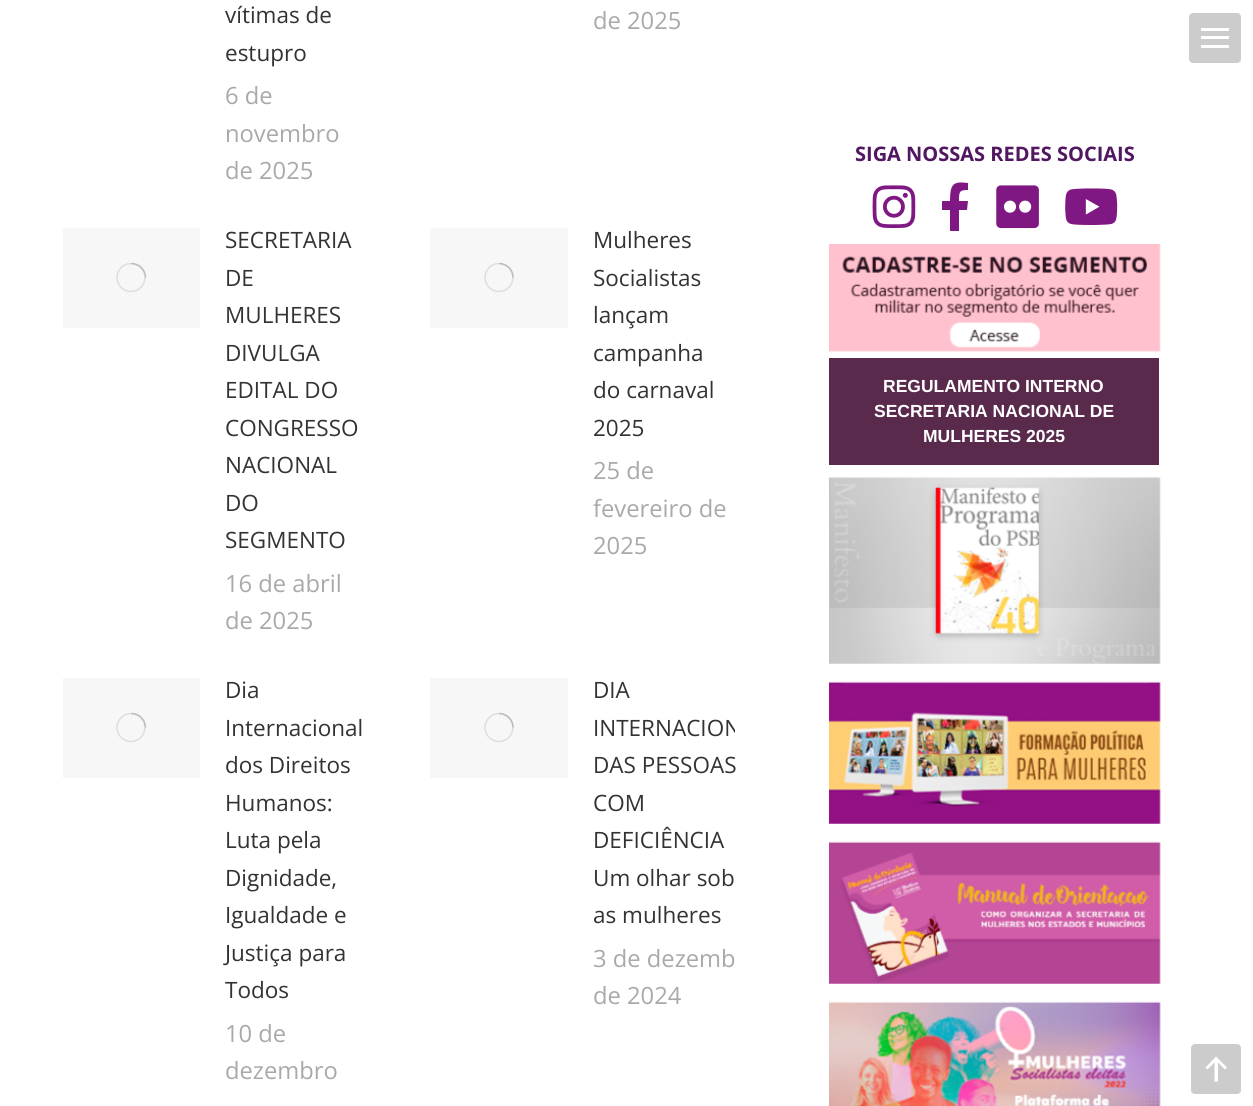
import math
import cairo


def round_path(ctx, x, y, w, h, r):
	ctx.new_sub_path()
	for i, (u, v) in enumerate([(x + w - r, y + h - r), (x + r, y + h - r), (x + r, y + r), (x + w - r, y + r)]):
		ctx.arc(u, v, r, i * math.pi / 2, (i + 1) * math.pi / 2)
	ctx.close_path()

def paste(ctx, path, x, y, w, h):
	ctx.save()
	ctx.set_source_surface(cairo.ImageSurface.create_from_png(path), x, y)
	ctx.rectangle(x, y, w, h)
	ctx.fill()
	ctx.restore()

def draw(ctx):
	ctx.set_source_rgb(1, 1, 1)
	ctx.paint()
	ctx.select_font_face('Open Sans')
	ctx.set_font_size(22.5)
	ctx.set_source_rgb(0.2, 0.2, 0.2)
	ctx.move_to(225, 23)
	ctx.show_text('vítimas de')
	ctx.move_to(225, 61)
	ctx.show_text('estupro')
	ctx.set_font_size(23.75)
	ctx.set_source_rgb(0.655, 0.663, 0.671)
	for x, y, s in [
		(225, 104, '6 de'),
		(225, 142, 'novembro'),
		(225, 179, 'de 2025'),
		(593, 29, 'de 2025'),
	]:
		ctx.move_to(x, y)
		ctx.show_text(s)
	ctx.set_source_rgb(0.965, 0.965, 0.969)
	ctx.rectangle(63, 228, 137, 100)
	ctx.fill()
	ctx.save()
	ctx.rectangle(116, 263, 30, 30)
	ctx.clip()
	ctx.arc(131, 277.5, 14, 0, 2 * math.pi)
	ctx.set_source_rgb(0.875, 0.875, 0.882)
	ctx.set_line_width(1.6)
	ctx.stroke()
	ctx.restore()
	ctx.new_path()
	ctx.move_to(145.5, 277.5)
	ctx.curve_to(145.5, 269.5, 139, 263.5, 131, 263.5)
	ctx.set_source_rgba(0.31, 0.322, 0.341, 0.25)
	ctx.set_line_width(1.6)
	ctx.stroke()
	ctx.set_font_size(22.5)
	ctx.set_source_rgb(0.2, 0.2, 0.2)
	for x, y, s in [
		(225, 248, 'SECRETARIA'),
		(225, 286, 'DE'),
		(225, 323, 'MULHERES'),
		(225, 361, 'DIVULGA'),
		(225, 398, 'EDITAL DO'),
		(225, 436, 'CONGRESSO'),
		(225, 473, 'NACIONAL'),
		(225, 511, 'DO'),
		(225, 548, 'SEGMENTO'),
	]:
		ctx.move_to(x, y)
		ctx.show_text(s)
	ctx.set_font_size(23.75)
	ctx.set_source_rgb(0.655, 0.663, 0.671)
	ctx.move_to(225, 592)
	ctx.show_text('16 de abril')
	ctx.move_to(225, 629)
	ctx.show_text('de 2025')
	ctx.set_source_rgb(0.965, 0.965, 0.969)
	ctx.rectangle(430, 228, 138, 100)
	ctx.fill()
	ctx.save()
	ctx.rectangle(484, 263, 30, 30)
	ctx.clip()
	ctx.arc(499, 277.5, 14, 0, 2 * math.pi)
	ctx.set_source_rgb(0.875, 0.875, 0.882)
	ctx.stroke()
	ctx.restore()
	ctx.new_path()
	ctx.move_to(513, 277.5)
	ctx.curve_to(513, 269.5, 506.5, 263.5, 499, 263.5)
	ctx.set_source_rgba(0.31, 0.322, 0.341, 0.25)
	ctx.stroke()
	ctx.set_font_size(22.5)
	ctx.set_source_rgb(0.2, 0.2, 0.2)
	for x, y, s in [
		(593, 248, 'Mulheres'),
		(593, 286, 'Socialistas'),
		(593, 323, 'lançam'),
		(593, 361, 'campanha'),
		(593, 398, 'do carnaval'),
		(593, 436, '2025'),
	]:
		ctx.move_to(x, y)
		ctx.show_text(s)
	ctx.set_font_size(23.75)
	ctx.set_source_rgb(0.655, 0.663, 0.671)
	for x, y, s in [
		(593, 479, '25 de'),
		(593, 517, 'fevereiro de'),
		(593, 554, '2025'),
	]:
		ctx.move_to(x, y)
		ctx.show_text(s)
	ctx.set_source_rgb(0.965, 0.965, 0.969)
	ctx.rectangle(63, 678, 137, 100)
	ctx.fill()
	ctx.save()
	ctx.rectangle(116, 713, 30, 30)
	ctx.clip()
	ctx.arc(131, 727.5, 14, 0, 2 * math.pi)
	ctx.set_source_rgb(0.875, 0.875, 0.882)
	ctx.stroke()
	ctx.restore()
	ctx.new_path()
	ctx.move_to(145.5, 727.5)
	ctx.curve_to(145.5, 719.5, 139, 713.5, 131, 713.5)
	ctx.set_source_rgba(0.31, 0.322, 0.341, 0.25)
	ctx.stroke()
	ctx.set_font_size(22.5)
	ctx.set_source_rgb(0.2, 0.2, 0.2)
	for x, y, s in [
		(225, 698, 'Dia'),
		(225, 736, 'Internacional'),
		(225, 773, 'dos Direitos'),
		(225, 811, 'Humanos:'),
		(225, 848, 'Luta pela'),
		(225, 886, 'Dignidade,'),
		(225, 923, 'Igualdade e'),
		(225, 961, 'Justiça para'),
		(225, 998, 'Todos'),
	]:
		ctx.move_to(x, y)
		ctx.show_text(s)
	ctx.set_font_size(23.75)
	ctx.set_source_rgb(0.655, 0.663, 0.671)
	ctx.move_to(225, 1042)
	ctx.show_text('10 de')
	ctx.move_to(225, 1079)
	ctx.show_text('dezembro')
	ctx.set_source_rgb(0.965, 0.965, 0.969)
	ctx.rectangle(430, 678, 138, 100)
	ctx.fill()
	ctx.save()
	ctx.rectangle(484, 713, 30, 30)
	ctx.clip()
	ctx.arc(499, 727.5, 14, 0, 2 * math.pi)
	ctx.set_source_rgb(0.875, 0.875, 0.882)
	ctx.stroke()
	ctx.restore()
	ctx.new_path()
	ctx.move_to(513, 727.5)
	ctx.curve_to(513, 719.5, 506.5, 713.5, 499, 713.5)
	ctx.set_source_rgba(0.31, 0.322, 0.341, 0.25)
	ctx.stroke()
	ctx.set_font_size(22.5)
	ctx.set_source_rgb(0.2, 0.2, 0.2)
	ctx.move_to(593, 698)
	ctx.show_text('DIA')
	ctx.save()
	ctx.rectangle(430, 671, 305, 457)
	ctx.clip()
	ctx.move_to(593, 736)
	ctx.show_text('INTERNACION')
	ctx.restore()
	for x, y, s in [
		(593, 773, 'DAS PESSOAS'),
		(593, 811, 'COM'),
		(593, 848, 'DEFICIÊNCIA'),
		(593, 886, 'Um olhar sob'),
		(593, 923, 'as mulheres'),
	]:
		ctx.move_to(x, y)
		ctx.show_text(s)
	ctx.set_font_size(23.75)
	ctx.set_source_rgb(0.655, 0.663, 0.671)
	ctx.move_to(593, 967)
	ctx.show_text('3 de dezemb')
	ctx.move_to(593, 1004)
	ctx.show_text('de 2024')
	ctx.select_font_face('Open Sans', cairo.FONT_SLANT_NORMAL, cairo.FONT_WEIGHT_BOLD)
	ctx.set_font_size(20)
	ctx.set_source_rgb(0.318, 0.09, 0.38)
	ctx.move_to(855, 161)
	ctx.show_text('SIGA NOSSAS REDES SOCIAIS')
	paste(ctx, 'media/1.png', 872, 185, 44, 44)
	ctx.set_source_rgb(0.498, 0.094, 0.514)
	ctx.new_path()
	ctx.move_to(967, 210)
	ctx.line_to(959, 210)
	ctx.line_to(959, 231)
	ctx.line_to(950, 231)
	ctx.line_to(950, 210)
	ctx.line_to(942, 210)
	ctx.line_to(942, 201)
	ctx.line_to(950, 201)
	ctx.curve_to(950, 184, 953, 181, 968, 183)
	ctx.line_to(968, 190)
	ctx.curve_to(959, 190, 959, 192, 959, 201)
	ctx.line_to(968, 201)
	ctx.close_path()
	ctx.fill()
	paste(ctx, 'media/2.png', 996, 185, 43, 44)
	paste(ctx, 'media/3.png', 1065, 188, 53, 37)
	paste(ctx, 'media/4.png', 829, 244, 332, 108)
	ctx.set_source_rgb(0.353, 0.165, 0.302)
	ctx.rectangle(829, 358, 330, 107)
	ctx.fill()
	ctx.select_font_face('Liberation Sans', cairo.FONT_SLANT_NORMAL, cairo.FONT_WEIGHT_BOLD)
	ctx.set_font_size(17.5)
	ctx.set_source_rgb(1, 1, 1)
	for x, y, s in [
		(883, 392, 'REGULAMENTO INTERNO'),
		(874, 417, 'SECRETARIA NACIONAL DE'),
		(923, 442, 'MULHERES 2025'),
	]:
		ctx.move_to(x, y)
		ctx.show_text(s)
	paste(ctx, 'media/5.png', 829, 476, 332, 188)
	paste(ctx, 'media/6.png', 829, 681, 332, 143)
	paste(ctx, 'media/7.png', 829, 841, 332, 143)
	paste(ctx, 'media/8.png', 829, 1001, 332, 105)
	ctx.set_source_rgb(0.8, 0.8, 0.8)
	round_path(ctx, 1189, 13, 52, 50, 4)
	ctx.fill()
	ctx.set_source_rgb(1, 1, 1)
	ctx.rectangle(1201, 28, 28, 3)
	ctx.rectangle(1201, 36, 28, 3)
	ctx.rectangle(1201, 45, 28, 3)
	ctx.fill()
	ctx.set_source_rgb(0.8, 0.8, 0.8)
	round_path(ctx, 1191, 1044, 50, 50, 4)
	ctx.fill()
	ctx.set_source_rgb(1, 1, 1)
	ctx.new_path()
	ctx.move_to(1205.5, 1067.5)
	ctx.line_to(1207.5, 1069.5)
	ctx.line_to(1214.5, 1062.5)
	ctx.line_to(1214.5, 1081.5)
	ctx.line_to(1218, 1081.5)
	ctx.line_to(1218, 1062.5)
	ctx.line_to(1225, 1069.5)
	ctx.line_to(1227, 1067.5)
	ctx.line_to(1216, 1056.5)
	ctx.close_path()
	ctx.fill()


surface = cairo.ImageSurface(cairo.FORMAT_RGB24, 1253, 1106)
ctx = cairo.Context(surface)
options = cairo.FontOptions()
options.set_hint_metrics(cairo.HINT_METRICS_OFF)
options.set_hint_style(cairo.HINT_STYLE_NONE)
ctx.set_font_options(options)
ctx.set_miter_limit(4)
draw(ctx)
surface.write_to_png('image.png')
